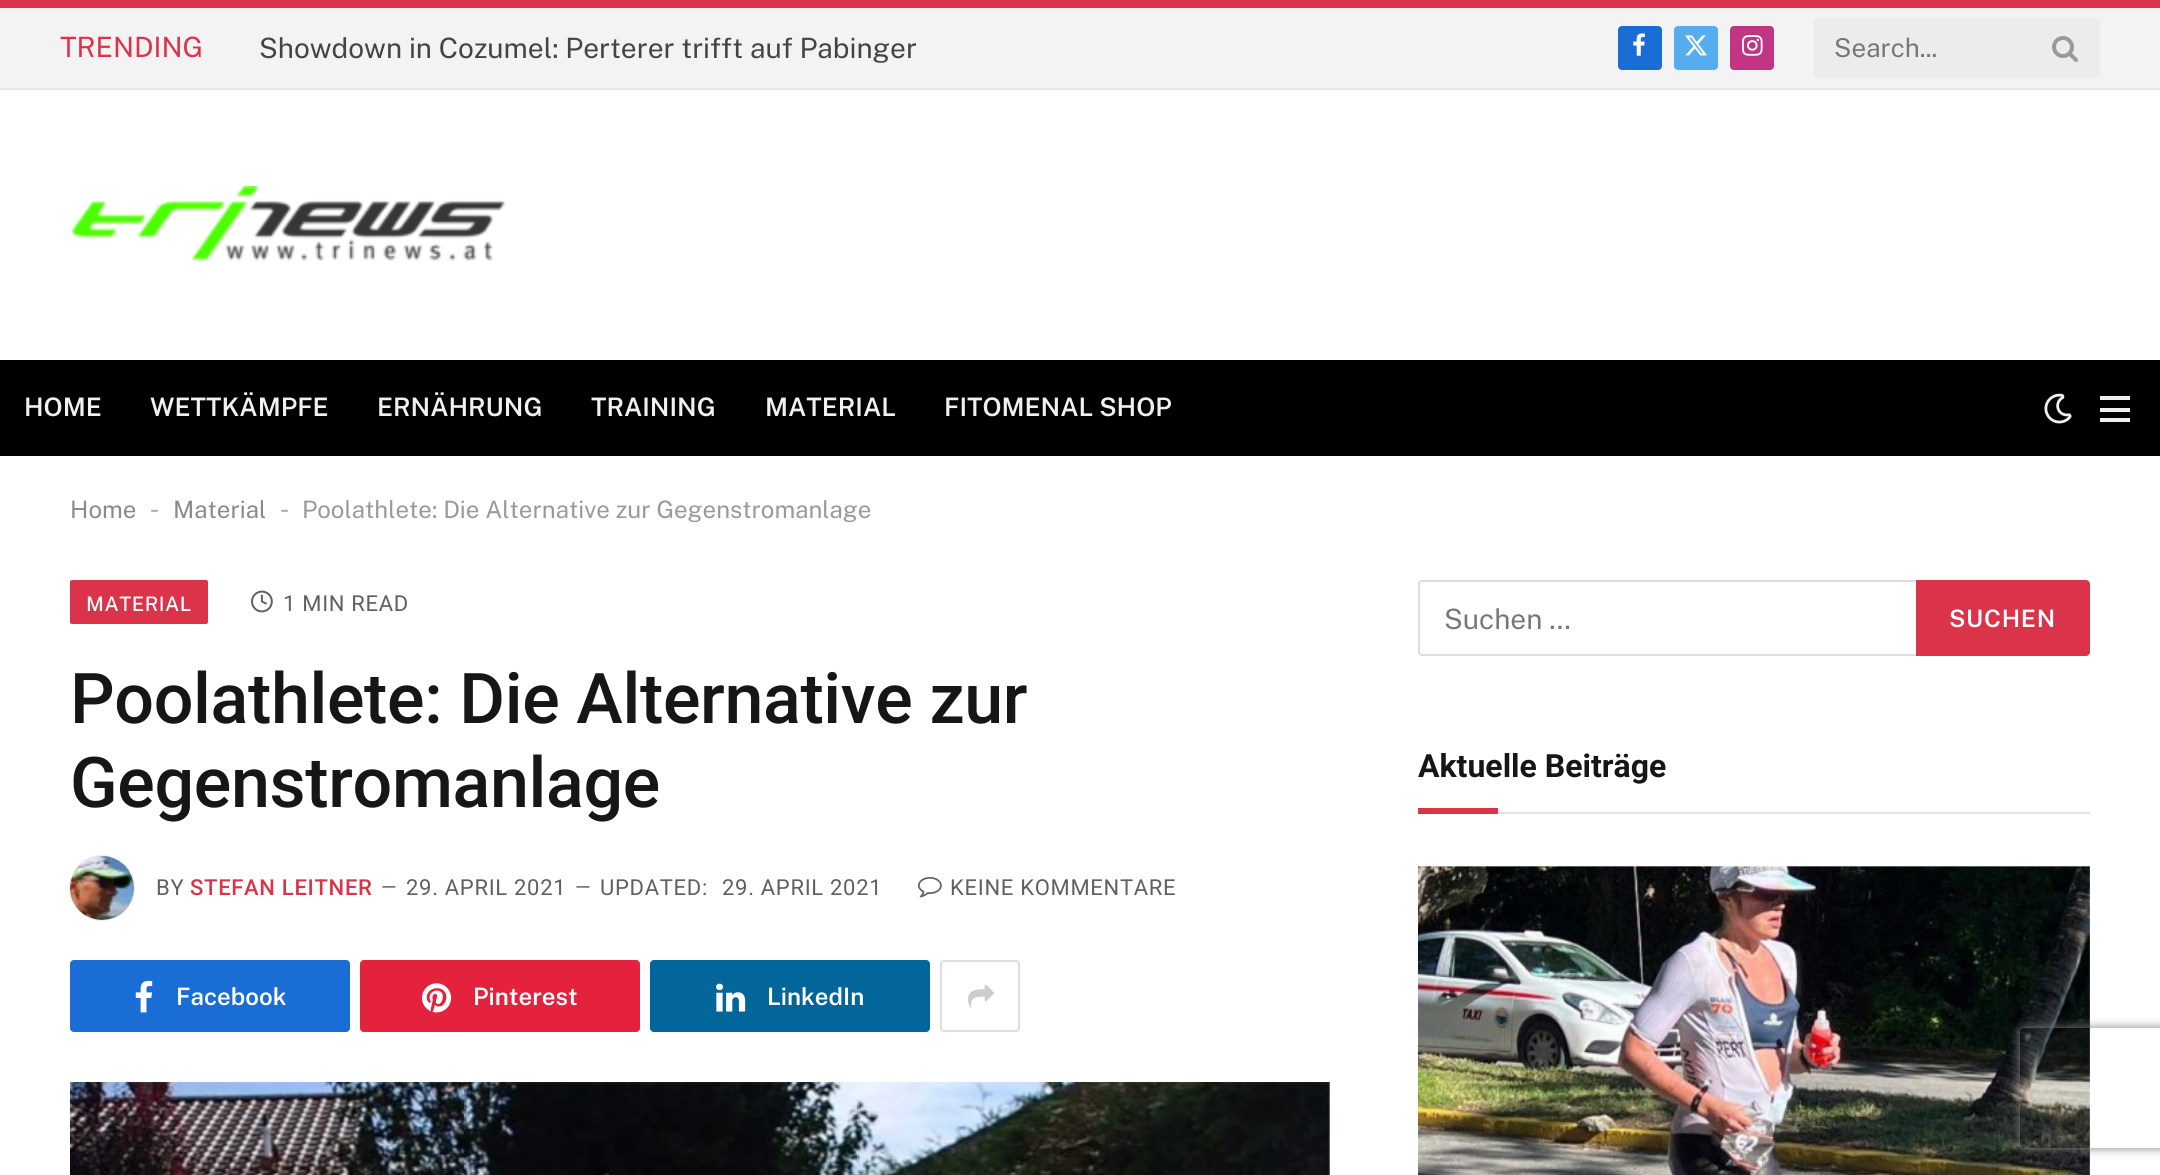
import math
import cairo


def write_spaced(ctx, x, y, s, letter, word):
	ctx.move_to(x, y)
	for ch in s:
		ctx.show_text(ch)
		ctx.rel_move_to(letter + word * (ch == ' '), 0)

def round_path(ctx, x, y, w, h, r):
	ctx.new_sub_path()
	for i, (u, v) in enumerate([(x + w - r, y + h - r), (x + r, y + h - r), (x + r, y + r), (x + w - r, y + r)]):
		ctx.arc(u, v, r, i * math.pi / 2, (i + 1) * math.pi / 2)
	ctx.close_path()

def blur_box(ctx, x, y, w, h, r, blur, alpha):
	ctx.push_group_with_content(cairo.CONTENT_ALPHA)
	ctx.set_operator(cairo.OPERATOR_SOURCE)
	for i in range(15, -16, -2):
		e = blur * i / 6
		if min(w, h) + 2 * e > 0:
			ctx.set_source_rgba(0, 0, 0, alpha * math.erfc((i - 1) / 8.5) / 2)
			round_path(ctx, x - e, y - e, w + 2 * e, h + 2 * e, max(0, min(r + e + blur * .6, min(w, h) / 2 + e)))
			ctx.fill()
	ctx.mask(ctx.pop_group())

def paste(ctx, path, x, y, w, h):
	ctx.save()
	ctx.set_source_surface(cairo.ImageSurface.create_from_png(path), x, y)
	ctx.rectangle(x, y, w, h)
	ctx.fill()
	ctx.restore()

def draw(ctx):
	ctx.set_source_rgb(1, 1, 1)
	ctx.paint()
	ctx.set_source_rgb(0.953, 0.953, 0.953)
	ctx.rectangle(0, 8, 2160, 80)
	ctx.fill()
	ctx.set_source_rgb(0.855, 0.2, 0.29)
	ctx.rectangle(0, 0, 2160, 8)
	ctx.fill()
	ctx.set_source_rgb(0.91, 0.91, 0.91)
	ctx.rectangle(0, 88, 2160, 2)
	ctx.fill()
	ctx.select_font_face('Public Sans')
	ctx.set_font_size(28)
	ctx.set_source_rgb(0.855, 0.2, 0.29)
	ctx.move_to(60, 57)
	ctx.show_text('TRENDING')
	ctx.set_source_rgb(0.267, 0.267, 0.267)
	ctx.move_to(259, 58)
	ctx.show_text('Showdown in Cozumel: Perterer trifft auf Pabinger')
	ctx.set_source_rgb(0.102, 0.427, 0.831)
	round_path(ctx, 1618, 26, 44, 44, 4)
	ctx.fill()
	paste(ctx, 'media/1.png', 1633, 33, 12, 23)
	ctx.set_source_rgb(0.333, 0.675, 0.937)
	round_path(ctx, 1674, 26, 44, 44, 4)
	ctx.fill()
	paste(ctx, 'media/2.png', 1685, 35, 22, 21)
	ctx.set_source_rgb(0.757, 0.208, 0.518)
	round_path(ctx, 1730, 26, 44, 44, 4)
	ctx.fill()
	paste(ctx, 'media/3.png', 1742, 35, 21, 21)
	ctx.set_source_rgb(0.925, 0.925, 0.925)
	round_path(ctx, 1814, 18, 286, 60, 4)
	ctx.fill()
	ctx.set_font_size(26)
	ctx.set_source_rgb(0.467, 0.467, 0.467)
	ctx.move_to(1834, 57)
	ctx.show_text('Search...')
	paste(ctx, 'media/4.png', 2052, 36, 26, 26)
	paste(ctx, 'media/5.png', 71, 186, 435, 76)
	ctx.set_source_rgb(0, 0, 0)
	ctx.rectangle(0, 360, 2160, 96)
	ctx.fill()
	ctx.select_font_face('Public Sans SemiBold')
	ctx.set_font_size(25.5)
	ctx.set_source_rgb(0.941, 0.941, 0.941)
	for x, y, s in [
		(24, 416, 'HOME'),
		(150, 416, 'WETTKÄMPFE'),
		(377, 416, 'ERNÄHRUNG'),
		(591, 416, 'TRAINING'),
		(765, 416, 'MATERIAL'),
		(944, 416, 'FITOMENAL SHOP'),
	]:
		ctx.move_to(x, y)
		ctx.show_text(s)
	paste(ctx, 'media/6.png', 2044, 393, 28, 31)
	ctx.rectangle(2100, 418, 30, 4)
	ctx.rectangle(2100, 396, 30, 4)
	ctx.rectangle(2100, 408, 30, 4)
	ctx.fill()
	ctx.select_font_face('Public Sans')
	ctx.set_font_size(24)
	ctx.set_source_rgb(0.541, 0.541, 0.541)
	ctx.move_to(70, 518)
	ctx.show_text('Home')
	ctx.select_font_face('Liberation Sans')
	ctx.set_font_size(27)
	ctx.set_source_rgb(0.678, 0.678, 0.678)
	ctx.move_to(150, 518)
	ctx.show_text('-')
	ctx.select_font_face('Public Sans')
	ctx.set_font_size(24)
	ctx.set_source_rgb(0.541, 0.541, 0.541)
	ctx.move_to(173, 518)
	ctx.show_text('Material')
	ctx.select_font_face('Liberation Sans')
	ctx.set_font_size(27)
	ctx.set_source_rgb(0.678, 0.678, 0.678)
	ctx.move_to(280, 518)
	ctx.show_text('-')
	ctx.select_font_face('Public Sans')
	ctx.set_font_size(24)
	ctx.set_source_rgb(0.6, 0.6, 0.6)
	ctx.move_to(302, 518)
	ctx.show_text('Poolathlete: Die Alternative zur Gegenstromanlage')
	ctx.set_source_rgb(0.855, 0.2, 0.29)
	round_path(ctx, 70, 580, 138, 44, 2)
	ctx.fill()
	ctx.select_font_face('Public Sans Medium')
	ctx.set_font_size(20)
	ctx.set_source_rgb(1, 1, 1)
	write_spaced(ctx, 86, 611, 'MATERIAL', 0.5, 0)
	paste(ctx, 'media/7.png', 251, 590, 22, 23)
	ctx.select_font_face('Roboto')
	ctx.set_font_size(22)
	ctx.set_source_rgb(0.376, 0.376, 0.376)
	write_spaced(ctx, 283, 611, '1 MIN READ', 0.7, 0)
	ctx.select_font_face('Roboto Medium')
	ctx.set_font_size(70)
	ctx.set_source_rgb(0.086, 0.086, 0.086)
	write_spaced(ctx, 70, 723, 'Poolathlete: Die Alternative zur', -0.35, 0)
	write_spaced(ctx, 70, 807, 'Gegenstromanlage', -0.35, 0)
	ctx.set_source_rgb(0, 0, 0)
	blur_box(ctx, 70, 856, 64, 64, 32, 1, 0.2)
	paste(ctx, 'media/8.png', 70, 856, 64, 64)
	ctx.select_font_face('Roboto')
	ctx.set_font_size(22)
	ctx.set_source_rgb(0.376, 0.376, 0.376)
	write_spaced(ctx, 156, 895, 'BY', 0.7, 0)
	ctx.select_font_face('Roboto Medium')
	ctx.set_source_rgb(0.855, 0.2, 0.29)
	write_spaced(ctx, 190, 895, 'STEFAN LEITNER', 0.7, 0)
	ctx.select_font_face('Roboto')
	ctx.set_font_size(20)
	ctx.set_source_rgb(0.376, 0.376, 0.376)
	write_spaced(ctx, 381, 894, '—', 0.5, 0)
	ctx.set_font_size(22)
	write_spaced(ctx, 406, 895, '29. APRIL 2021', 0.7, 0)
	ctx.set_font_size(20)
	write_spaced(ctx, 575, 894, '—', 0.5, 0)
	ctx.set_font_size(22)
	write_spaced(ctx, 600, 895, 'UPDATED:', 0.7, 0)
	write_spaced(ctx, 722, 895, '29. APRIL 2021', 0.7, 0)
	paste(ctx, 'media/9.png', 918, 877, 24, 21)
	write_spaced(ctx, 950, 895, 'KEINE KOMMENTARE', 0.7, 0)
	ctx.set_source_rgb(0.102, 0.427, 0.831)
	round_path(ctx, 70, 960, 280, 72, 4)
	ctx.fill()
	paste(ctx, 'media/10.png', 135, 980, 18, 33)
	ctx.select_font_face('Public Sans SemiBold')
	ctx.set_font_size(24)
	ctx.set_source_rgb(1, 1, 1)
	ctx.move_to(176, 1005)
	ctx.show_text('Facebook')
	ctx.set_source_rgb(0.894, 0.133, 0.243)
	round_path(ctx, 360, 960, 280, 72, 4)
	ctx.fill()
	paste(ctx, 'media/11.png', 422, 983, 30, 30)
	ctx.set_source_rgb(1, 1, 1)
	ctx.move_to(473, 1005)
	ctx.show_text('Pinterest')
	ctx.set_source_rgb(0.008, 0.4, 0.604)
	round_path(ctx, 650, 960, 280, 72, 4)
	ctx.fill()
	paste(ctx, 'media/12.png', 716, 983, 30, 29)
	ctx.set_source_rgb(1, 1, 1)
	ctx.move_to(767, 1005)
	ctx.show_text('LinkedIn')
	round_path(ctx, 941, 961, 78, 70, 3)
	ctx.set_source_rgb(0.867, 0.867, 0.867)
	ctx.stroke()
	paste(ctx, 'media/13.png', 968, 984, 26, 24)
	paste(ctx, 'media/14.png', 70, 1082, 1260, 93)
	round_path(ctx, 1419, 581, 500, 74, 3)
	ctx.stroke()
	ctx.select_font_face('Public Sans')
	ctx.set_font_size(28)
	ctx.set_source_rgb(0.467, 0.467, 0.467)
	ctx.move_to(1444, 629)
	ctx.show_text('Suchen …')
	ctx.set_source_rgb(0.855, 0.2, 0.29)
	ctx.new_path()
	ctx.move_to(1916, 580)
	ctx.line_to(2086, 580)
	ctx.curve_to(2088, 580, 2090, 582, 2090, 584)
	ctx.line_to(2090, 652)
	ctx.curve_to(2090, 654, 2088, 656, 2086, 656)
	ctx.line_to(1916, 656)
	ctx.close_path()
	ctx.fill()
	ctx.select_font_face('Public Sans SemiBold')
	ctx.set_font_size(24)
	ctx.set_source_rgb(1, 1, 1)
	write_spaced(ctx, 1949, 627, 'SUCHEN', 0.75, 0)
	ctx.set_source_rgb(0.886, 0.886, 0.886)
	ctx.rectangle(1498, 812, 592, 2)
	ctx.fill()
	ctx.select_font_face('Roboto', cairo.FONT_SLANT_NORMAL, cairo.FONT_WEIGHT_BOLD)
	ctx.set_font_size(32)
	ctx.set_source_rgb(0.086, 0.086, 0.086)
	ctx.move_to(1418, 777)
	ctx.show_text('Aktuelle Beiträge')
	ctx.set_source_rgb(0.855, 0.2, 0.29)
	ctx.rectangle(1418, 808, 80, 6)
	ctx.fill()
	paste(ctx, 'media/15.png', 1418, 866, 672, 309)
	ctx.save()
	ctx.set_fill_rule(cairo.FILL_RULE_EVEN_ODD)
	ctx.new_path()
	ctx.move_to(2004, 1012)
	ctx.line_to(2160, 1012)
	ctx.line_to(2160, 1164)
	ctx.line_to(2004, 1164)
	ctx.close_path()
	ctx.move_to(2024, 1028)
	ctx.line_to(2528, 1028)
	ctx.curve_to(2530, 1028, 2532, 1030, 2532, 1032)
	ctx.line_to(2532, 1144)
	ctx.curve_to(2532, 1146, 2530, 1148, 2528, 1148)
	ctx.line_to(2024, 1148)
	ctx.curve_to(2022, 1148, 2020, 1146, 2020, 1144)
	ctx.line_to(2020, 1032)
	ctx.curve_to(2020, 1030, 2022, 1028, 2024, 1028)
	ctx.close_path()
	ctx.clip()
	ctx.set_source_rgb(0.502, 0.502, 0.502)
	blur_box(ctx, 2020, 1028, 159, 120, 4, 5, 1)
	ctx.restore()


surface = cairo.ImageSurface(cairo.FORMAT_RGB24, 2160, 1175)
ctx = cairo.Context(surface)
options = cairo.FontOptions()
options.set_hint_metrics(cairo.HINT_METRICS_OFF)
options.set_hint_style(cairo.HINT_STYLE_NONE)
ctx.set_font_options(options)
ctx.set_miter_limit(4)
draw(ctx)
surface.write_to_png('image.png')
